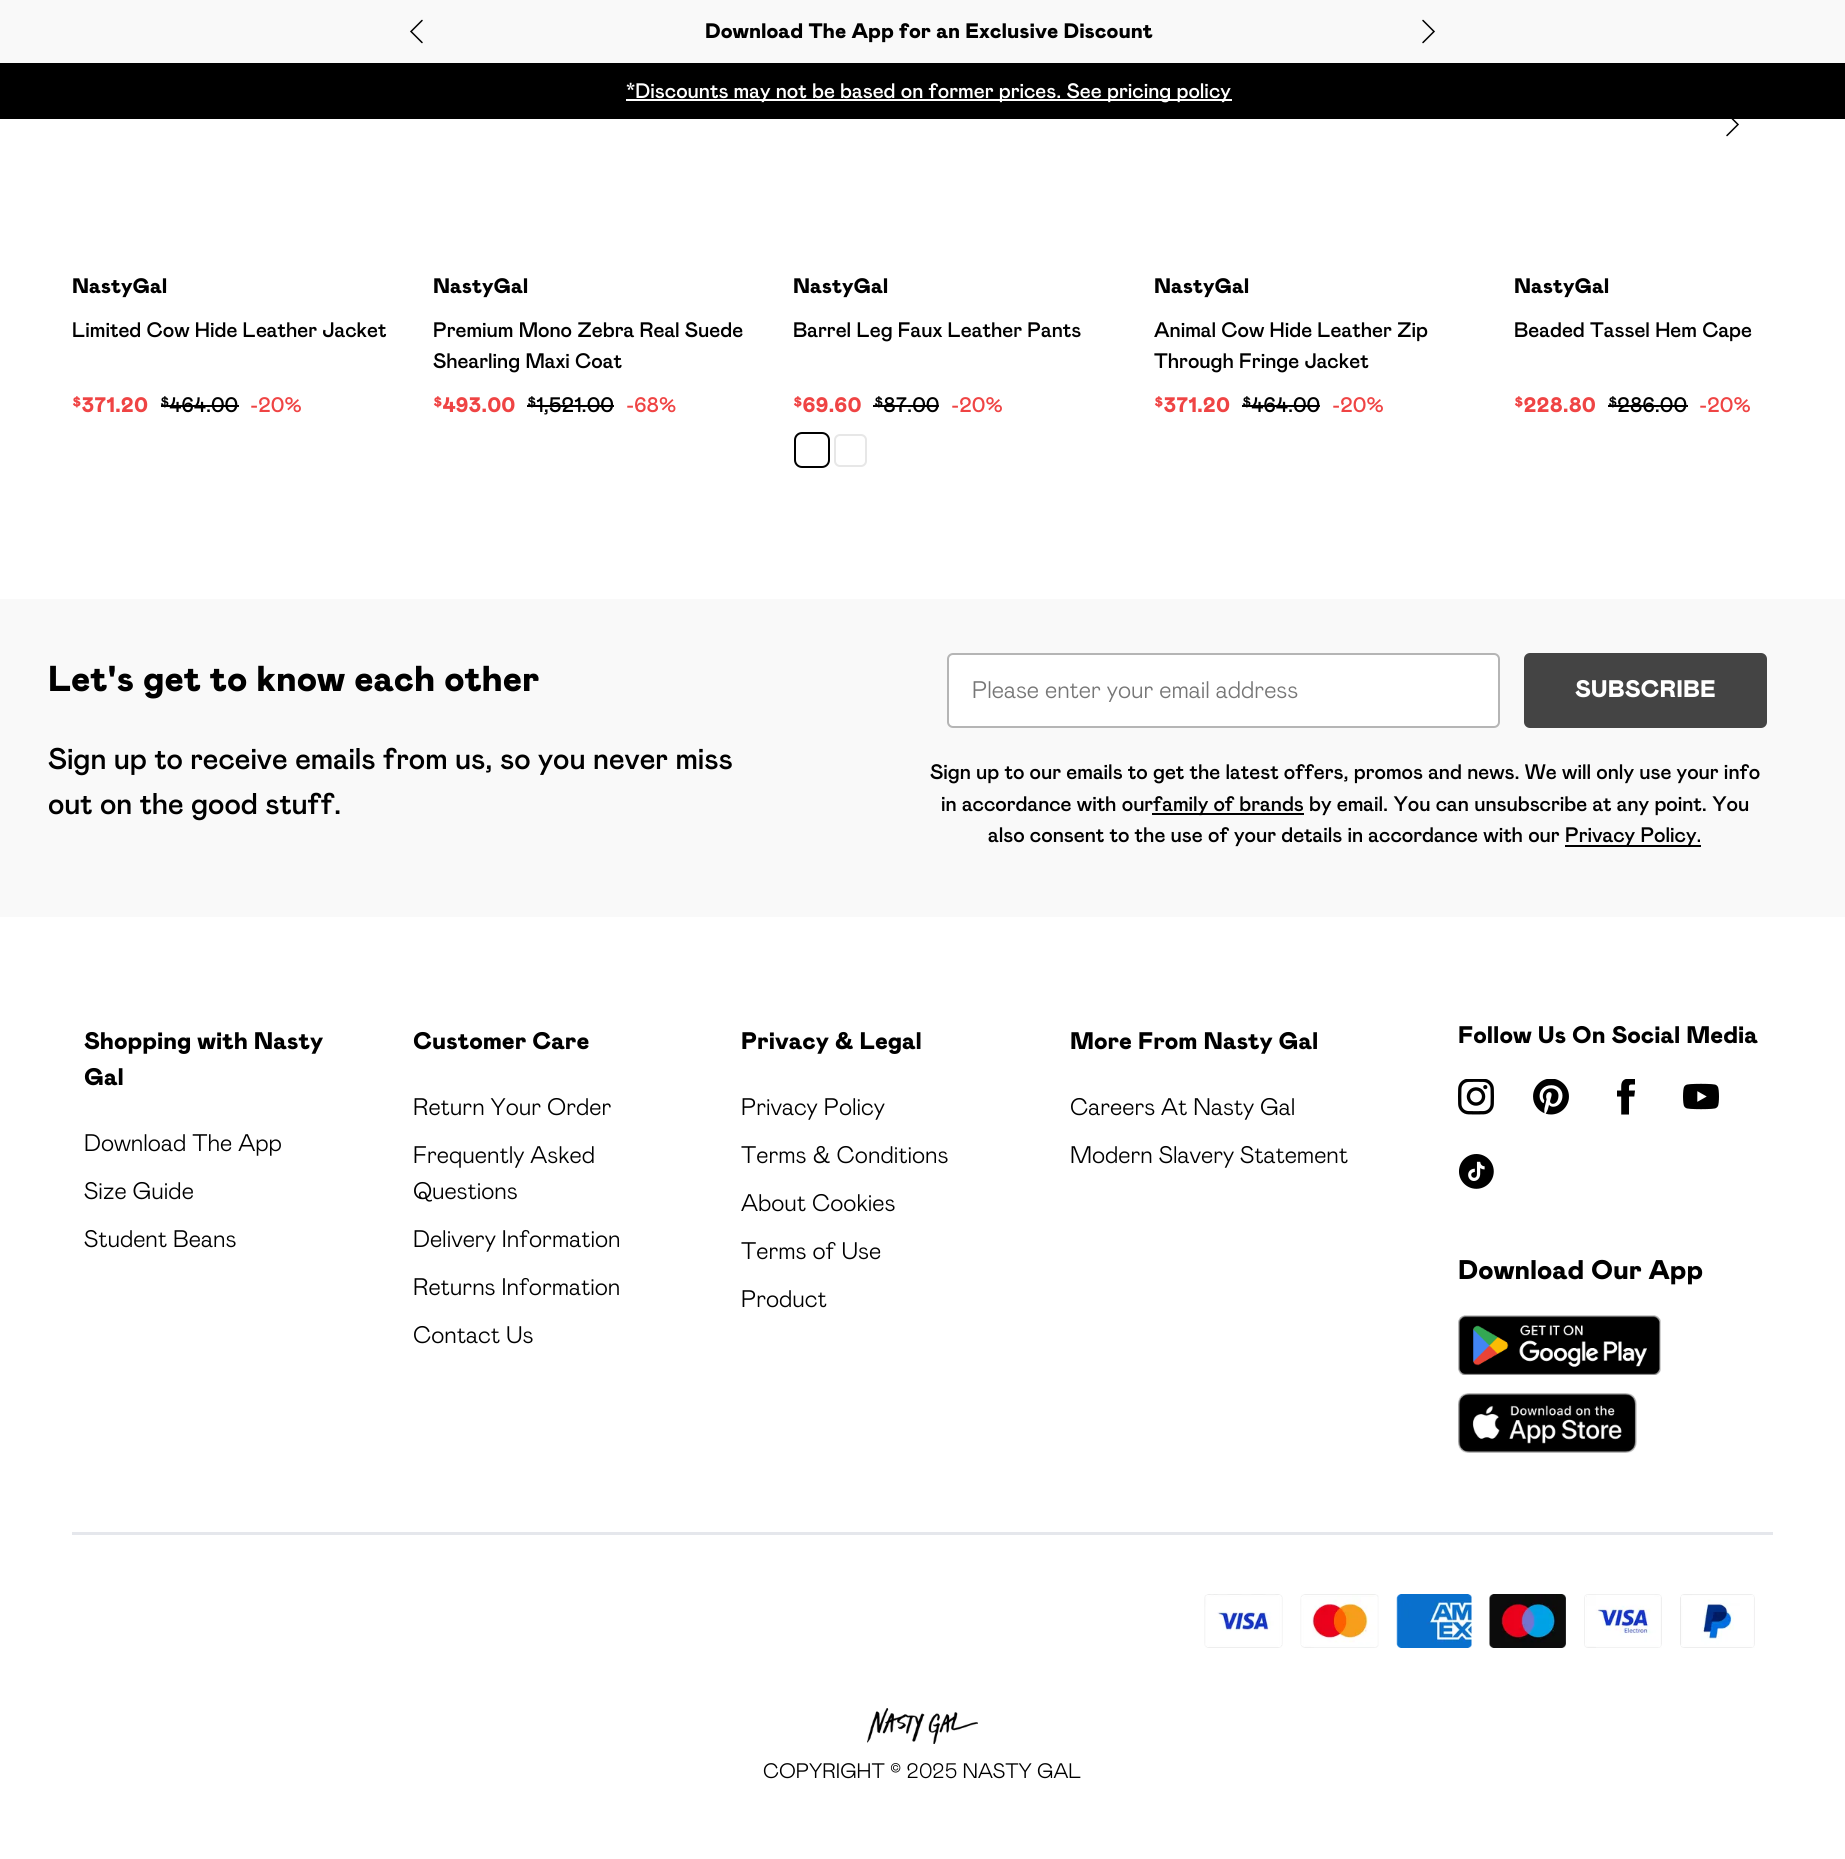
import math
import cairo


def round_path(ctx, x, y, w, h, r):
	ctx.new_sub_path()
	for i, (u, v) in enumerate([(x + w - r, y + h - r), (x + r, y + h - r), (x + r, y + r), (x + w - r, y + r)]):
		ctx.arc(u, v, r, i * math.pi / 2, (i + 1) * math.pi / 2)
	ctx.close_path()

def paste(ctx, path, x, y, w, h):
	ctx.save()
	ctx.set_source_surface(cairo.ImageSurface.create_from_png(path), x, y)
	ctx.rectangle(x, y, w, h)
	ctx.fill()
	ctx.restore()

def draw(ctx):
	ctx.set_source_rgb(1, 1, 1)
	ctx.paint()
	ctx.set_source_rgb(0.973, 0.973, 0.973)
	ctx.rectangle(0, 0, 1845, 63)
	ctx.fill()
	ctx.new_path()
	ctx.move_to(422, 20.5)
	ctx.line_to(411, 31.5)
	ctx.line_to(422, 42.5)
	ctx.set_source_rgb(0, 0, 0)
	ctx.set_line_width(1.5)
	ctx.set_line_cap(cairo.LINE_CAP_ROUND)
	ctx.stroke()
	ctx.select_font_face('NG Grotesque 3')
	ctx.set_font_size(21)
	ctx.move_to(705, 38)
	ctx.show_text('Download The App for an Exclusive Discount')
	ctx.new_path()
	ctx.move_to(1423, 42.5)
	ctx.line_to(1434, 31.5)
	ctx.line_to(1423, 20.5)
	ctx.stroke()
	ctx.new_path()
	ctx.move_to(1727, 135.5)
	ctx.line_to(1738, 124.5)
	ctx.line_to(1727, 113.5)
	ctx.stroke()
	ctx.rectangle(0, 63, 1845, 56)
	ctx.fill()
	ctx.set_source_rgb(1, 1, 1)
	ctx.rectangle(626, 99, 606, 2)
	ctx.fill()
	ctx.select_font_face('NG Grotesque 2')
	ctx.move_to(626, 98)
	ctx.show_text('*Discounts may not be based on former prices. See pricing policy')
	ctx.select_font_face('NG Grotesque 3')
	ctx.set_source_rgb(0, 0, 0)
	ctx.move_to(72, 293)
	ctx.show_text('NastyGal')
	ctx.select_font_face('NG Grotesque 2')
	ctx.move_to(72, 337)
	ctx.show_text('Limited Cow Hide Leather Jacket')
	ctx.select_font_face('NG Grotesque 3')
	ctx.set_source_rgb(0.937, 0.267, 0.267)
	ctx.move_to(72, 412)
	ctx.show_text('$371.20')
	ctx.select_font_face('NG Grotesque 2')
	ctx.set_source_rgb(0, 0, 0)
	ctx.move_to(160, 412)
	ctx.show_text('$464.00')
	ctx.rectangle(161, 405, 78, 2)
	ctx.fill()
	ctx.set_source_rgb(0.937, 0.267, 0.267)
	ctx.move_to(250, 412)
	ctx.show_text('-20%')
	ctx.select_font_face('NG Grotesque 3')
	ctx.set_source_rgb(0, 0, 0)
	ctx.move_to(433, 293)
	ctx.show_text('NastyGal')
	ctx.select_font_face('NG Grotesque 2')
	ctx.move_to(433, 337)
	ctx.show_text('Premium Mono Zebra Real Suede')
	ctx.move_to(433, 368)
	ctx.show_text('Shearling Maxi Coat')
	ctx.select_font_face('NG Grotesque 3')
	ctx.set_source_rgb(0.937, 0.267, 0.267)
	ctx.move_to(433, 412)
	ctx.show_text('$493.00')
	ctx.select_font_face('NG Grotesque 2')
	ctx.set_source_rgb(0, 0, 0)
	ctx.move_to(527, 412)
	ctx.show_text('$1,521.00')
	ctx.rectangle(527, 405, 87, 2)
	ctx.fill()
	ctx.set_source_rgb(0.937, 0.267, 0.267)
	ctx.move_to(626, 412)
	ctx.show_text('-68%')
	ctx.select_font_face('NG Grotesque 3')
	ctx.set_source_rgb(0, 0, 0)
	ctx.move_to(793, 293)
	ctx.show_text('NastyGal')
	ctx.select_font_face('NG Grotesque 2')
	ctx.move_to(793, 337)
	ctx.show_text('Barrel Leg Faux Leather Pants')
	ctx.select_font_face('NG Grotesque 3')
	ctx.set_source_rgb(0.937, 0.267, 0.267)
	ctx.move_to(793, 412)
	ctx.show_text('$69.60')
	ctx.select_font_face('NG Grotesque 2')
	ctx.set_source_rgb(0, 0, 0)
	ctx.move_to(874, 412)
	ctx.show_text('$87.00')
	ctx.rectangle(873, 405, 66, 2)
	ctx.fill()
	ctx.set_source_rgb(0.937, 0.267, 0.267)
	ctx.move_to(951, 412)
	ctx.show_text('-20%')
	round_path(ctx, 795, 433, 34, 34, 7)
	ctx.set_source_rgb(0, 0, 0)
	ctx.set_line_width(2)
	ctx.set_line_cap(cairo.LINE_CAP_BUTT)
	ctx.stroke()
	round_path(ctx, 835, 435, 31, 31, 5)
	ctx.set_source_rgb(0.906, 0.906, 0.906)
	ctx.stroke()
	ctx.select_font_face('NG Grotesque 3')
	ctx.set_source_rgb(0, 0, 0)
	ctx.move_to(1154, 293)
	ctx.show_text('NastyGal')
	ctx.select_font_face('NG Grotesque 2')
	ctx.move_to(1154, 337)
	ctx.show_text('Animal Cow Hide Leather Zip')
	ctx.move_to(1154, 368)
	ctx.show_text('Through Fringe Jacket')
	ctx.select_font_face('NG Grotesque 3')
	ctx.set_source_rgb(0.937, 0.267, 0.267)
	ctx.move_to(1154, 412)
	ctx.show_text('$371.20')
	ctx.select_font_face('NG Grotesque 2')
	ctx.set_source_rgb(0, 0, 0)
	ctx.move_to(1242, 412)
	ctx.show_text('$464.00')
	ctx.rectangle(1242, 405, 78, 2)
	ctx.fill()
	ctx.set_source_rgb(0.937, 0.267, 0.267)
	ctx.move_to(1332, 412)
	ctx.show_text('-20%')
	ctx.select_font_face('NG Grotesque 3')
	ctx.set_source_rgb(0, 0, 0)
	ctx.move_to(1514, 293)
	ctx.show_text('NastyGal')
	ctx.select_font_face('NG Grotesque 2')
	ctx.move_to(1514, 337)
	ctx.show_text('Beaded Tassel Hem Cape')
	ctx.select_font_face('NG Grotesque 3')
	ctx.set_source_rgb(0.937, 0.267, 0.267)
	ctx.move_to(1514, 412)
	ctx.show_text('$228.80')
	ctx.select_font_face('NG Grotesque 2')
	ctx.set_source_rgb(0, 0, 0)
	ctx.move_to(1608, 412)
	ctx.show_text('$286.00')
	ctx.rectangle(1608, 405, 80, 2)
	ctx.fill()
	ctx.set_source_rgb(0.937, 0.267, 0.267)
	ctx.move_to(1699, 412)
	ctx.show_text('-20%')
	ctx.set_source_rgb(0.973, 0.973, 0.973)
	ctx.rectangle(0, 599, 1845, 318)
	ctx.fill()
	ctx.select_font_face('NG Grotesque 3')
	ctx.set_font_size(36)
	ctx.set_source_rgb(0, 0, 0)
	ctx.move_to(48, 691)
	ctx.show_text('Let\'s get to know each other')
	ctx.select_font_face('NG Grotesque 2')
	ctx.set_font_size(30)
	ctx.move_to(48, 769)
	ctx.show_text('Sign up to receive emails from us, so you never miss')
	ctx.move_to(48, 814)
	ctx.show_text('out on the good stuff.')
	ctx.set_source_rgb(1, 1, 1)
	round_path(ctx, 948, 654, 551, 73, 5)
	ctx.fill_preserve()
	ctx.set_source_rgb(0.71, 0.71, 0.71)
	ctx.stroke()
	ctx.save()
	ctx.rectangle(972, 677, 503, 25)
	ctx.clip()
	ctx.select_font_face('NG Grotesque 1')
	ctx.set_font_size(24)
	ctx.set_source_rgb(0.463, 0.463, 0.463)
	ctx.move_to(972, 698)
	ctx.show_text('Please enter your email address')
	ctx.restore()
	ctx.set_source_rgb(0.267, 0.267, 0.267)
	round_path(ctx, 1524, 653, 243, 75, 6)
	ctx.fill()
	ctx.select_font_face('NG Grotesque 3')
	ctx.set_font_size(24)
	ctx.set_source_rgb(1, 1, 1)
	ctx.move_to(1575, 697)
	ctx.show_text('SUBSCRIBE')
	ctx.select_font_face('NG Grotesque 2')
	ctx.set_font_size(21)
	ctx.set_source_rgb(0, 0, 0)
	ctx.move_to(930, 779)
	ctx.show_text('Sign up to our emails to get the latest offers, promos and news. We will only use your info')
	ctx.move_to(941, 811)
	ctx.show_text('in accordance with our')
	ctx.rectangle(1152, 813, 152, 2)
	ctx.fill()
	ctx.move_to(1153, 811)
	ctx.show_text('family of brands by email. You can unsubscribe at any point. You')
	ctx.move_to(988, 842)
	ctx.show_text('also consent to the use of your details in accordance with our')
	ctx.rectangle(1565, 845, 136, 2)
	ctx.fill()
	ctx.move_to(1565, 842)
	ctx.show_text('Privacy Policy.')
	ctx.set_source_rgb(0.898, 0.906, 0.922)
	ctx.rectangle(72, 1532, 1701, 3)
	ctx.fill()
	ctx.select_font_face('NG Grotesque 3')
	ctx.set_font_size(24)
	ctx.set_source_rgb(0, 0, 0)
	ctx.move_to(84, 1049)
	ctx.show_text('Shopping with Nasty')
	ctx.move_to(84, 1085)
	ctx.show_text('Gal')
	ctx.select_font_face('NG Grotesque 1')
	for x, y, s in [
		(84, 1151, 'Download The App'),
		(84, 1199, 'Size Guide'),
		(84, 1247, 'Student Beans'),
	]:
		ctx.move_to(x, y)
		ctx.show_text(s)
	ctx.select_font_face('NG Grotesque 3')
	ctx.move_to(413, 1049)
	ctx.show_text('Customer Care')
	ctx.select_font_face('NG Grotesque 1')
	for x, y, s in [
		(413, 1115, 'Return Your Order'),
		(413, 1163, 'Frequently Asked'),
		(413, 1199, 'Questions'),
		(413, 1247, 'Delivery Information'),
		(413, 1295, 'Returns Information'),
		(413, 1343, 'Contact Us'),
	]:
		ctx.move_to(x, y)
		ctx.show_text(s)
	ctx.select_font_face('NG Grotesque 3')
	ctx.move_to(741, 1049)
	ctx.show_text('Privacy & Legal')
	ctx.select_font_face('NG Grotesque 1')
	for x, y, s in [
		(741, 1115, 'Privacy Policy'),
		(741, 1163, 'Terms & Conditions'),
		(741, 1211, 'About Cookies'),
		(741, 1259, 'Terms of Use'),
		(741, 1307, 'Product'),
	]:
		ctx.move_to(x, y)
		ctx.show_text(s)
	ctx.select_font_face('NG Grotesque 3')
	ctx.move_to(1070, 1049)
	ctx.show_text('More From Nasty Gal')
	ctx.select_font_face('NG Grotesque 1')
	ctx.move_to(1070, 1115)
	ctx.show_text('Careers At Nasty Gal')
	ctx.move_to(1070, 1163)
	ctx.show_text('Modern Slavery Statement')
	ctx.select_font_face('NG Grotesque 3')
	ctx.move_to(1458, 1043)
	ctx.show_text('Follow Us On Social Media')
	paste(ctx, 'media/1.png', 1458, 1079, 36, 36)
	paste(ctx, 'media/2.png', 1533, 1079, 36, 36)
	paste(ctx, 'media/3.png', 1617, 1079, 18, 36)
	paste(ctx, 'media/4.png', 1683, 1083, 36, 27)
	paste(ctx, 'media/5.png', 1459, 1154, 35, 35)
	ctx.set_font_size(27)
	ctx.move_to(1458, 1279)
	ctx.show_text('Download Our App')
	paste(ctx, 'media/6.png', 1458, 1315, 203, 60)
	paste(ctx, 'media/7.png', 1458, 1393, 179, 60)
	paste(ctx, 'media/8.png', 1204, 1594, 79, 54)
	paste(ctx, 'media/9.png', 1300, 1594, 79, 54)
	paste(ctx, 'media/10.png', 1396, 1594, 76, 54)
	paste(ctx, 'media/11.png', 1489, 1594, 77, 54)
	paste(ctx, 'media/12.png', 1584, 1594, 78, 54)
	paste(ctx, 'media/13.png', 1680, 1594, 75, 54)
	paste(ctx, 'media/14.png', 867, 1708, 111, 36)
	ctx.select_font_face('NG Grotesque 1')
	ctx.set_font_size(21)
	ctx.move_to(763, 1778)
	ctx.show_text('COPYRIGHT © 2025 NASTY GAL')


surface = cairo.ImageSurface(cairo.FORMAT_RGB24, 1845, 1859)
ctx = cairo.Context(surface)
options = cairo.FontOptions()
options.set_hint_metrics(cairo.HINT_METRICS_OFF)
options.set_hint_style(cairo.HINT_STYLE_NONE)
ctx.set_font_options(options)
ctx.set_miter_limit(4)
draw(ctx)
surface.write_to_png('image.png')
